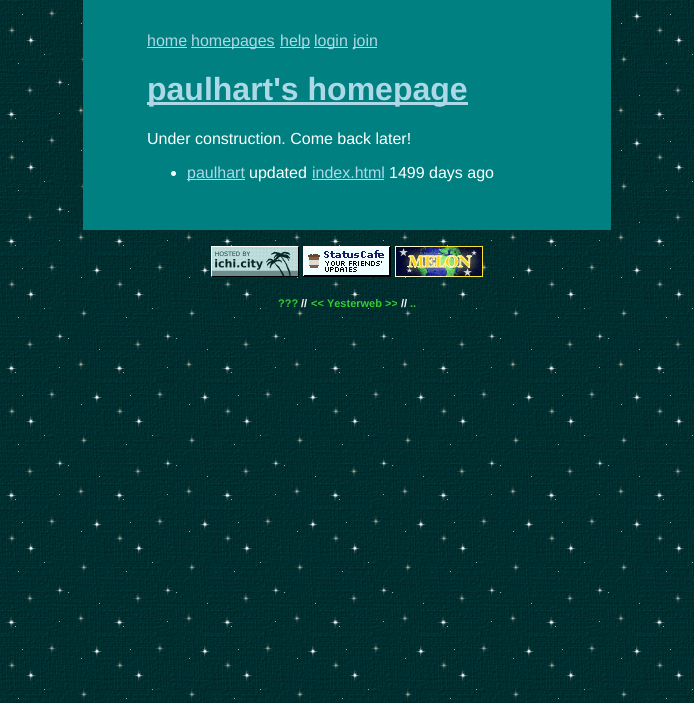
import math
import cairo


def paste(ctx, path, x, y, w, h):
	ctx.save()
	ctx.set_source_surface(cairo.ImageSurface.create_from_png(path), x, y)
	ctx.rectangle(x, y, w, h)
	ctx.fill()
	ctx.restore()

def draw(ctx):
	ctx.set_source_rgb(1, 1, 1)
	ctx.paint()
	paste(ctx, 'media/1.png', 0, 0, 694, 703)
	ctx.set_source_rgb(0, 0.502, 0.502)
	ctx.rectangle(83, 0, 528, 230)
	ctx.fill()
	ctx.select_font_face('Liberation Sans')
	ctx.set_font_size(16)
	ctx.set_source_rgb(0.678, 0.847, 0.902)
	ctx.move_to(147, 46)
	ctx.show_text('home')
	ctx.rectangle(147, 47, 40, 1)
	ctx.fill()
	ctx.rectangle(191, 47, 84, 1)
	ctx.fill()
	ctx.move_to(191, 46)
	ctx.show_text('homepages')
	ctx.rectangle(280, 47, 30, 1)
	ctx.fill()
	ctx.move_to(280, 46)
	ctx.show_text('help')
	ctx.rectangle(314, 47, 34, 1)
	ctx.fill()
	ctx.move_to(314, 46)
	ctx.show_text('login')
	ctx.rectangle(353, 47, 24, 1)
	ctx.fill()
	ctx.move_to(353, 46)
	ctx.show_text('join')
	ctx.rectangle(147, 102, 321, 3)
	ctx.fill()
	ctx.select_font_face('Liberation Sans', cairo.FONT_SLANT_NORMAL, cairo.FONT_WEIGHT_BOLD)
	ctx.set_font_size(32)
	ctx.move_to(147, 100)
	ctx.show_text('paulhart\'s homepage')
	ctx.select_font_face('Liberation Sans')
	ctx.set_font_size(16)
	ctx.set_source_rgb(1, 1, 1)
	ctx.move_to(147, 144)
	ctx.show_text('Under construction. Come back later!')
	ctx.new_path()
	ctx.arc(173.5, 173.5, 2.5, 0, 2 * math.pi)
	ctx.fill()
	ctx.set_source_rgb(0.678, 0.847, 0.902)
	ctx.rectangle(187, 179, 58, 1)
	ctx.fill()
	ctx.move_to(187, 178)
	ctx.show_text('paulhart')
	ctx.set_source_rgb(1, 1, 1)
	ctx.move_to(249, 178)
	ctx.show_text('updated')
	ctx.set_source_rgb(0.678, 0.847, 0.902)
	ctx.move_to(312, 178)
	ctx.show_text('index.html')
	ctx.rectangle(312, 179, 72, 1)
	ctx.fill()
	ctx.set_source_rgb(1, 1, 1)
	ctx.move_to(389, 178)
	ctx.show_text('1499 days ago')
	paste(ctx, 'media/2.png', 211, 246, 88, 31)
	paste(ctx, 'media/3.png', 303, 246, 88, 31)
	paste(ctx, 'media/4.png', 395, 246, 88, 31)
	ctx.select_font_face('Liberation Sans', cairo.FONT_SLANT_NORMAL, cairo.FONT_WEIGHT_BOLD)
	ctx.set_font_size(11)
	ctx.set_source_rgb(0.196, 0.804, 0.196)
	ctx.move_to(278, 307)
	ctx.show_text('???')
	ctx.set_source_rgb(1, 1, 1)
	ctx.move_to(301, 307)
	ctx.show_text('//')
	ctx.set_source_rgb(0.196, 0.804, 0.196)
	ctx.move_to(311, 307)
	ctx.show_text('<< Yesterweb >>')
	ctx.set_source_rgb(1, 1, 1)
	ctx.move_to(401, 307)
	ctx.show_text('//')
	ctx.set_source_rgb(0.196, 0.804, 0.196)
	ctx.move_to(410, 307)
	ctx.show_text('..')


surface = cairo.ImageSurface(cairo.FORMAT_RGB24, 694, 703)
ctx = cairo.Context(surface)
options = cairo.FontOptions()
options.set_hint_metrics(cairo.HINT_METRICS_OFF)
options.set_hint_style(cairo.HINT_STYLE_NONE)
ctx.set_font_options(options)
ctx.set_miter_limit(4)
draw(ctx)
surface.write_to_png('image.png')
